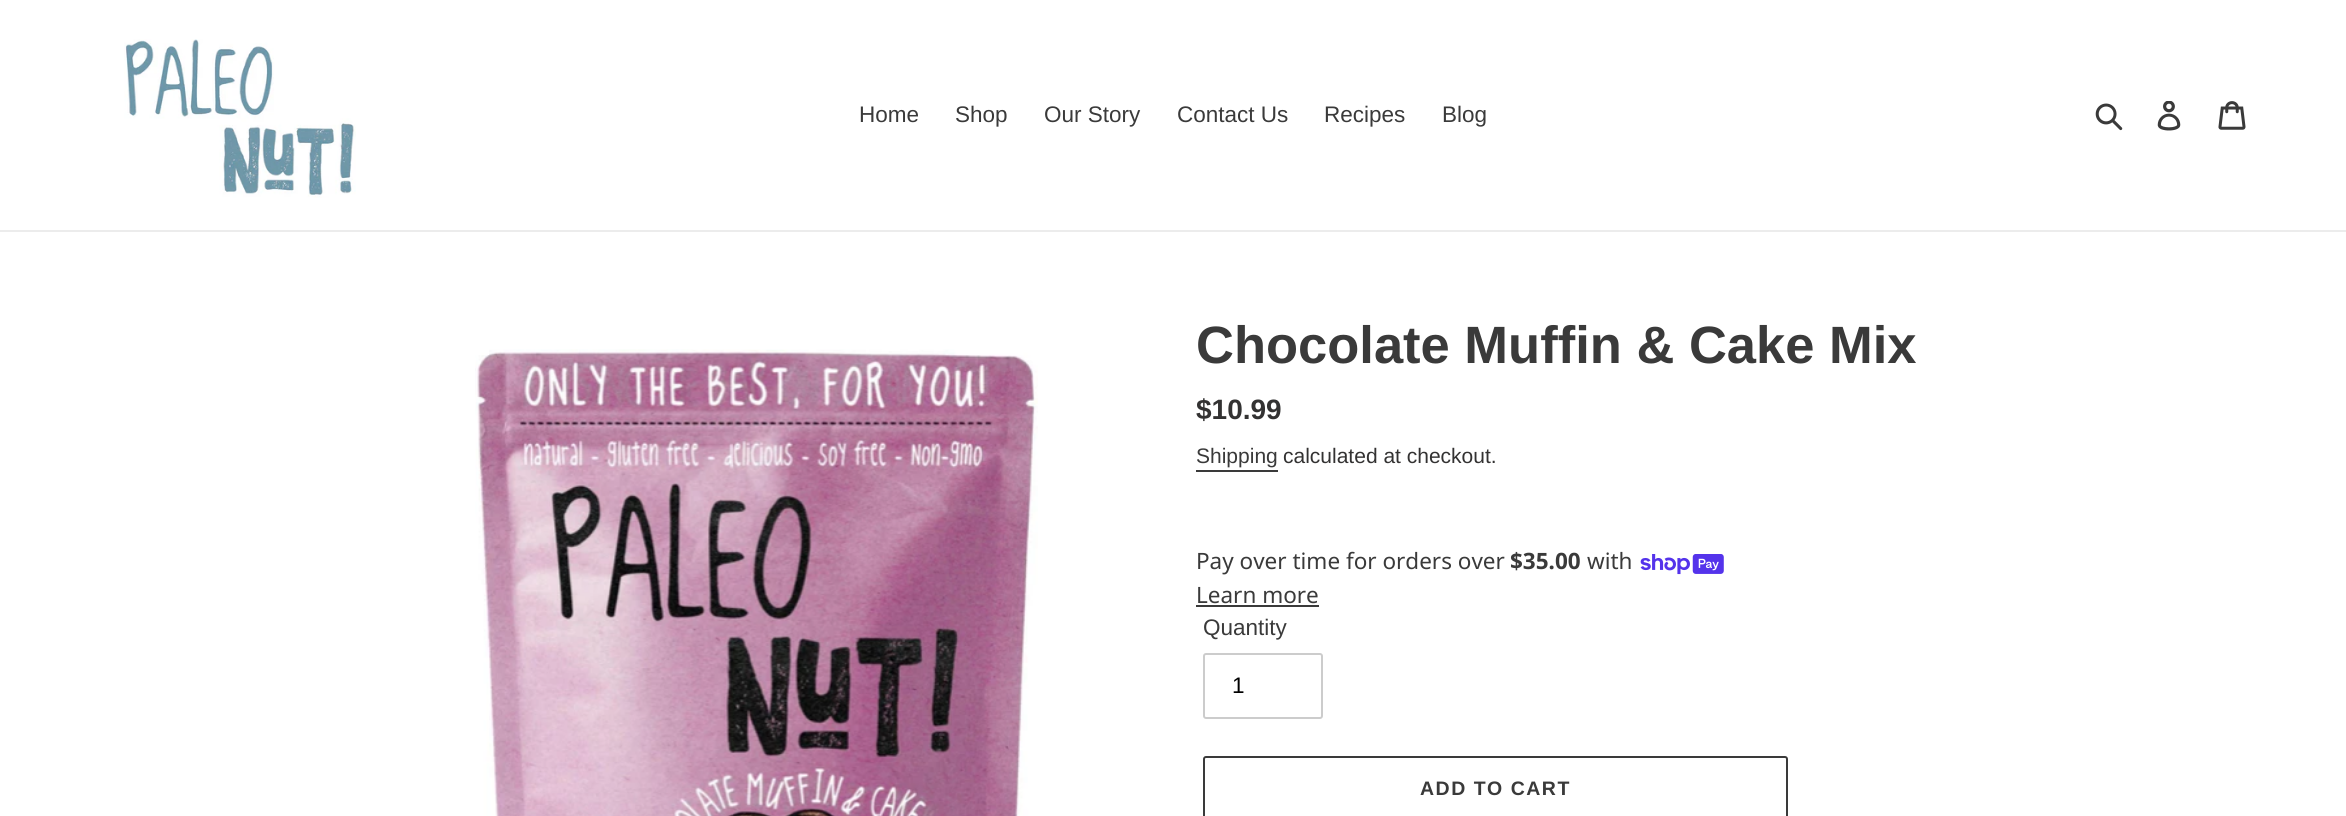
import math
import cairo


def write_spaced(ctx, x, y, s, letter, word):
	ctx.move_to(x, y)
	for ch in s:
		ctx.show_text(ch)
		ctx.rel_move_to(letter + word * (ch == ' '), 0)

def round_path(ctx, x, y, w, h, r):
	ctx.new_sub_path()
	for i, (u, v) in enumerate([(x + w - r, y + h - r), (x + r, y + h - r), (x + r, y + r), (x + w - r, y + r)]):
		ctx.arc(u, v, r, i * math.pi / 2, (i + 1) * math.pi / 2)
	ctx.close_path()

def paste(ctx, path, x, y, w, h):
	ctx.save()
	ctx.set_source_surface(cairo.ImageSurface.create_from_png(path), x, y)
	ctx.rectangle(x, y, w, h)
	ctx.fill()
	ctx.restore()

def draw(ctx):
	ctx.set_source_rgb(1, 1, 1)
	ctx.paint()
	ctx.set_source_rgb(0.922, 0.922, 0.922)
	ctx.rectangle(0, 230, 2346, 2)
	ctx.fill()
	paste(ctx, 'media/1.png', 124, 39, 232, 159)
	ctx.select_font_face('Liberation Sans')
	ctx.set_font_size(22.5)
	ctx.set_source_rgb(0.227, 0.227, 0.227)
	for x, y, s in [
		(859, 122, 'Home'),
		(955, 122, 'Shop'),
		(1044, 122, 'Our Story'),
		(1177, 122, 'Contact Us'),
		(1324, 122, 'Recipes'),
		(1442, 122, 'Blog'),
	]:
		ctx.move_to(x, y)
		ctx.show_text(s)
	paste(ctx, 'media/2.png', 2095, 103, 28, 28)
	paste(ctx, 'media/3.png', 2157, 101, 24, 30)
	paste(ctx, 'media/4.png', 2218, 101, 28, 29)
	paste(ctx, 'media/5.png', 475, 349, 563, 467)
	ctx.select_font_face('Liberation Sans', cairo.FONT_SLANT_NORMAL, cairo.FONT_WEIGHT_BOLD)
	ctx.set_font_size(52.5)
	ctx.move_to(1196, 363)
	ctx.show_text('Chocolate Muffin & Cake Mix')
	ctx.set_font_size(28)
	ctx.set_source_rgb(0.2, 0.196, 0.196)
	ctx.move_to(1196, 419)
	ctx.show_text('$10.99')
	ctx.select_font_face('Liberation Sans')
	ctx.set_font_size(21)
	ctx.set_source_rgb(0.227, 0.227, 0.227)
	ctx.move_to(1196, 463)
	ctx.show_text('Shipping')
	ctx.rectangle(1196, 470, 82, 2)
	ctx.fill()
	ctx.set_source_rgb(0.2, 0.196, 0.196)
	ctx.move_to(1283, 463)
	ctx.show_text('calculated at checkout.')
	ctx.select_font_face('Noto Sans')
	ctx.set_font_size(22.5)
	ctx.set_source_rgb(0.227, 0.227, 0.227)
	ctx.move_to(1196, 569)
	ctx.show_text('Pay over time for orders over')
	ctx.select_font_face('Noto Sans', cairo.FONT_SLANT_NORMAL, cairo.FONT_WEIGHT_BOLD)
	ctx.move_to(1510, 569)
	ctx.show_text('$35.00')
	ctx.select_font_face('Noto Sans')
	ctx.move_to(1587, 569)
	ctx.show_text('with')
	paste(ctx, 'media/6.png', 1640, 554, 84, 21)
	ctx.move_to(1196, 603)
	ctx.show_text('Learn more')
	ctx.rectangle(1196, 605, 123, 2)
	ctx.fill()
	ctx.select_font_face('Liberation Sans')
	ctx.move_to(1203, 635)
	ctx.show_text('Quantity')
	round_path(ctx, 1204, 654, 118, 64, 2)
	ctx.set_source_rgb(0.8, 0.8, 0.8)
	ctx.stroke()
	ctx.set_source_rgb(0, 0, 0)
	ctx.move_to(1232, 693)
	ctx.show_text('1')
	round_path(ctx, 1204, 757, 583, 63, 2)
	ctx.set_source_rgb(0.227, 0.227, 0.227)
	ctx.stroke()
	ctx.select_font_face('Liberation Sans', cairo.FONT_SLANT_NORMAL, cairo.FONT_WEIGHT_BOLD)
	ctx.set_font_size(19.5)
	write_spaced(ctx, 1420, 795, 'ADD TO CART', 1.5, 0)


surface = cairo.ImageSurface(cairo.FORMAT_RGB24, 2346, 816)
ctx = cairo.Context(surface)
options = cairo.FontOptions()
options.set_hint_metrics(cairo.HINT_METRICS_OFF)
options.set_hint_style(cairo.HINT_STYLE_NONE)
ctx.set_font_options(options)
ctx.set_miter_limit(4)
draw(ctx)
surface.write_to_png('image.png')
